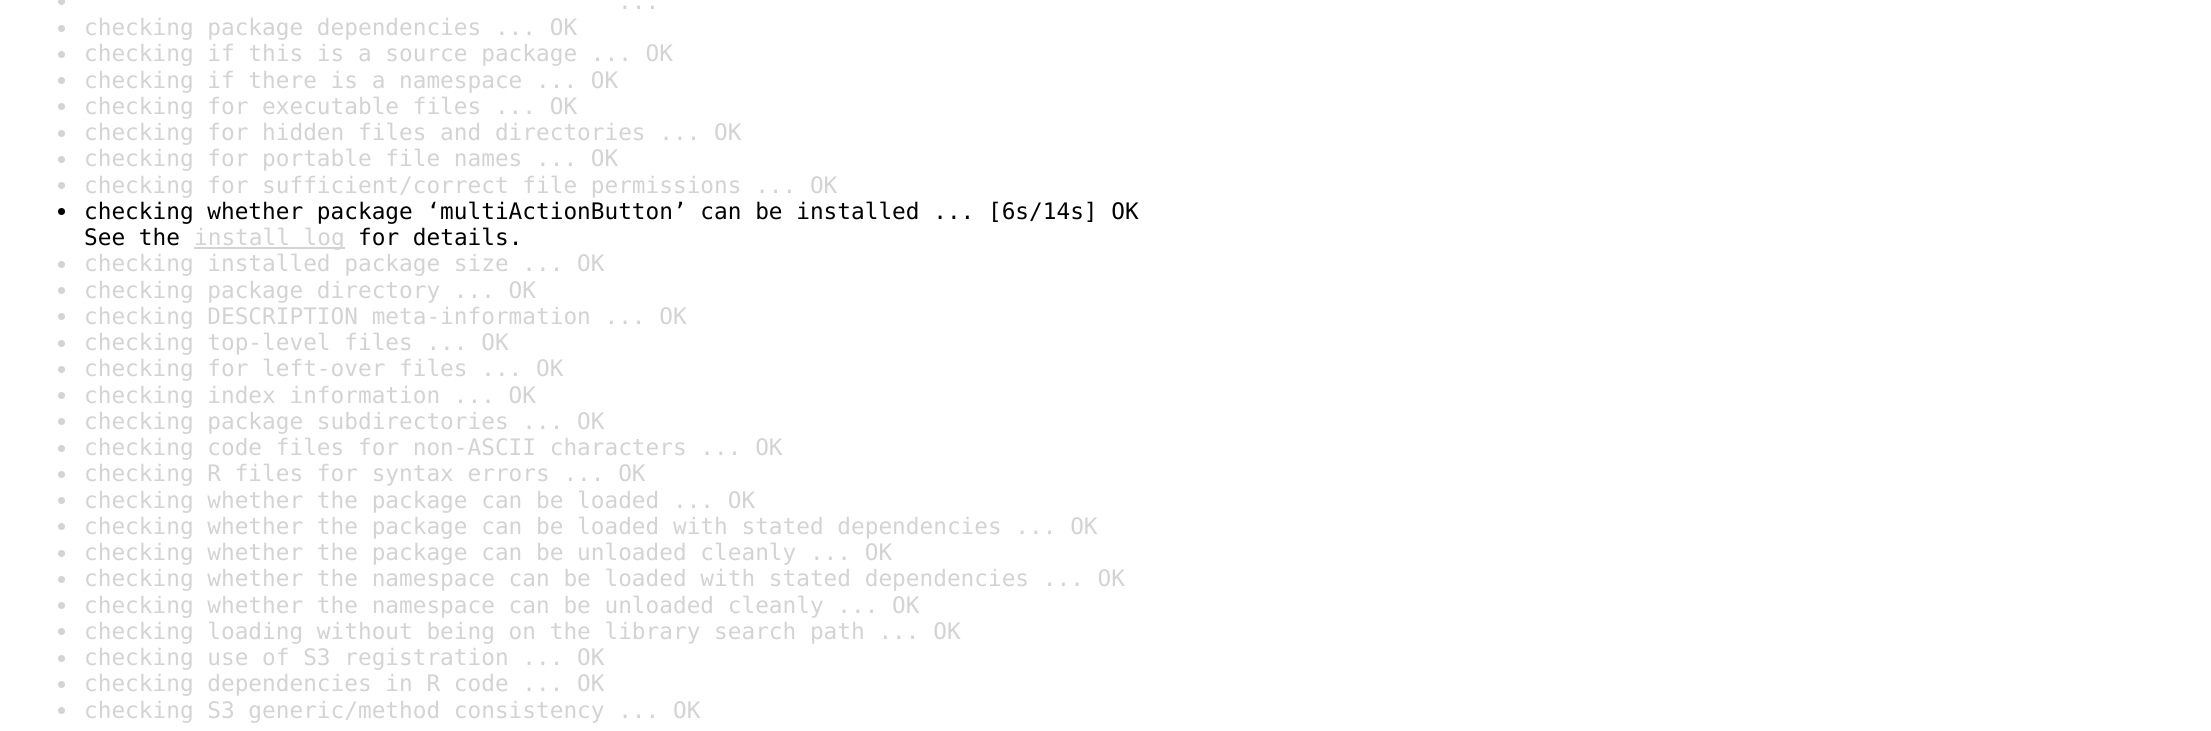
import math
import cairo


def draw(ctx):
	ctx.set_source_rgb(1, 1, 1)
	ctx.paint()
	ctx.set_source_rgb(0.827, 0.827, 0.827)
	ctx.arc(61.5, 1.5, 3.5, 0, 2 * math.pi)
	ctx.fill()
	ctx.select_font_face('DejaVu Sans Mono')
	ctx.set_font_size(22.75)
	ctx.move_to(618, 9)
	ctx.show_text('...')
	ctx.new_path()
	ctx.arc(61.5, 28.5, 3.5, 0, 2 * math.pi)
	ctx.fill()
	ctx.move_to(84, 35)
	ctx.show_text('checking package dependencies ... OK')
	ctx.new_path()
	ctx.arc(61.5, 54.5, 3.5, 0, 2 * math.pi)
	ctx.fill()
	ctx.move_to(84, 61)
	ctx.show_text('checking if this is a source package ... OK')
	ctx.new_path()
	ctx.arc(61.5, 80.5, 3.5, 0, 2 * math.pi)
	ctx.fill()
	ctx.move_to(84, 88)
	ctx.show_text('checking if there is a namespace ... OK')
	ctx.new_path()
	ctx.arc(61.5, 106.5, 3.5, 0, 2 * math.pi)
	ctx.fill()
	ctx.move_to(84, 114)
	ctx.show_text('checking for executable files ... OK')
	ctx.new_path()
	ctx.arc(61.5, 133.5, 3.5, 0, 2 * math.pi)
	ctx.fill()
	ctx.move_to(84, 140)
	ctx.show_text('checking for hidden files and directories ... OK')
	ctx.new_path()
	ctx.arc(61.5, 159.5, 3.5, 0, 2 * math.pi)
	ctx.fill()
	ctx.move_to(84, 166)
	ctx.show_text('checking for portable file names ... OK')
	ctx.new_path()
	ctx.arc(61.5, 185.5, 3.5, 0, 2 * math.pi)
	ctx.fill()
	ctx.move_to(84, 193)
	ctx.show_text('checking for sufficient/correct file permissions ... OK')
	ctx.set_source_rgb(0, 0, 0)
	ctx.new_path()
	ctx.arc(61.5, 211.5, 3.5, 0, 2 * math.pi)
	ctx.fill()
	ctx.move_to(84, 219)
	ctx.show_text('checking whether package ‘multiActionButton’ can be installed ... [6s/14s] OK')
	ctx.move_to(84, 245)
	ctx.show_text('See the')
	ctx.set_source_rgb(0.827, 0.827, 0.827)
	ctx.rectangle(194, 247, 151, 2)
	ctx.fill()
	ctx.move_to(194, 245)
	ctx.show_text('install log')
	ctx.set_source_rgb(0, 0, 0)
	ctx.move_to(358, 245)
	ctx.show_text('for details.')
	ctx.set_source_rgb(0.827, 0.827, 0.827)
	ctx.new_path()
	ctx.arc(61.5, 264.5, 3.5, 0, 2 * math.pi)
	ctx.fill()
	ctx.move_to(84, 271)
	ctx.show_text('checking installed package size ... OK')
	ctx.new_path()
	ctx.arc(61.5, 290.5, 3.5, 0, 2 * math.pi)
	ctx.fill()
	ctx.move_to(84, 298)
	ctx.show_text('checking package directory ... OK')
	ctx.new_path()
	ctx.arc(61.5, 316.5, 3.5, 0, 2 * math.pi)
	ctx.fill()
	ctx.move_to(84, 324)
	ctx.show_text('checking DESCRIPTION meta-information ... OK')
	ctx.new_path()
	ctx.arc(61.5, 343.5, 3.5, 0, 2 * math.pi)
	ctx.fill()
	ctx.move_to(84, 350)
	ctx.show_text('checking top-level files ... OK')
	ctx.new_path()
	ctx.arc(61.5, 369.5, 3.5, 0, 2 * math.pi)
	ctx.fill()
	ctx.move_to(84, 376)
	ctx.show_text('checking for left-over files ... OK')
	ctx.new_path()
	ctx.arc(61.5, 395.5, 3.5, 0, 2 * math.pi)
	ctx.fill()
	ctx.move_to(84, 403)
	ctx.show_text('checking index information ... OK')
	ctx.new_path()
	ctx.arc(61.5, 421.5, 3.5, 0, 2 * math.pi)
	ctx.fill()
	ctx.move_to(84, 429)
	ctx.show_text('checking package subdirectories ... OK')
	ctx.new_path()
	ctx.arc(61.5, 448.5, 3.5, 0, 2 * math.pi)
	ctx.fill()
	ctx.move_to(84, 455)
	ctx.show_text('checking code files for non-ASCII characters ... OK')
	ctx.new_path()
	ctx.arc(61.5, 474.5, 3.5, 0, 2 * math.pi)
	ctx.fill()
	ctx.move_to(84, 481)
	ctx.show_text('checking R files for syntax errors ... OK')
	ctx.new_path()
	ctx.arc(61.5, 500.5, 3.5, 0, 2 * math.pi)
	ctx.fill()
	ctx.move_to(84, 508)
	ctx.show_text('checking whether the package can be loaded ... OK')
	ctx.new_path()
	ctx.arc(61.5, 526.5, 3.5, 0, 2 * math.pi)
	ctx.fill()
	ctx.move_to(84, 534)
	ctx.show_text('checking whether the package can be loaded with stated dependencies ... OK')
	ctx.new_path()
	ctx.arc(61.5, 553.5, 3.5, 0, 2 * math.pi)
	ctx.fill()
	ctx.move_to(84, 560)
	ctx.show_text('checking whether the package can be unloaded cleanly ... OK')
	ctx.new_path()
	ctx.arc(61.5, 579.5, 3.5, 0, 2 * math.pi)
	ctx.fill()
	ctx.move_to(84, 586)
	ctx.show_text('checking whether the namespace can be loaded with stated dependencies ... OK')
	ctx.new_path()
	ctx.arc(61.5, 605.5, 3.5, 0, 2 * math.pi)
	ctx.fill()
	ctx.move_to(84, 613)
	ctx.show_text('checking whether the namespace can be unloaded cleanly ... OK')
	ctx.new_path()
	ctx.arc(61.5, 631.5, 3.5, 0, 2 * math.pi)
	ctx.fill()
	ctx.move_to(84, 639)
	ctx.show_text('checking loading without being on the library search path ... OK')
	ctx.new_path()
	ctx.arc(61.5, 658.5, 3.5, 0, 2 * math.pi)
	ctx.fill()
	ctx.move_to(84, 665)
	ctx.show_text('checking use of S3 registration ... OK')
	ctx.new_path()
	ctx.arc(61.5, 684.5, 3.5, 0, 2 * math.pi)
	ctx.fill()
	ctx.move_to(84, 691)
	ctx.show_text('checking dependencies in R code ... OK')
	ctx.new_path()
	ctx.arc(61.5, 710.5, 3.5, 0, 2 * math.pi)
	ctx.fill()
	ctx.move_to(84, 718)
	ctx.show_text('checking S3 generic/method consistency ... OK')


surface = cairo.ImageSurface(cairo.FORMAT_RGB24, 2211, 731)
ctx = cairo.Context(surface)
options = cairo.FontOptions()
options.set_hint_metrics(cairo.HINT_METRICS_OFF)
options.set_hint_style(cairo.HINT_STYLE_NONE)
ctx.set_font_options(options)
ctx.set_miter_limit(4)
draw(ctx)
surface.write_to_png('image.png')
